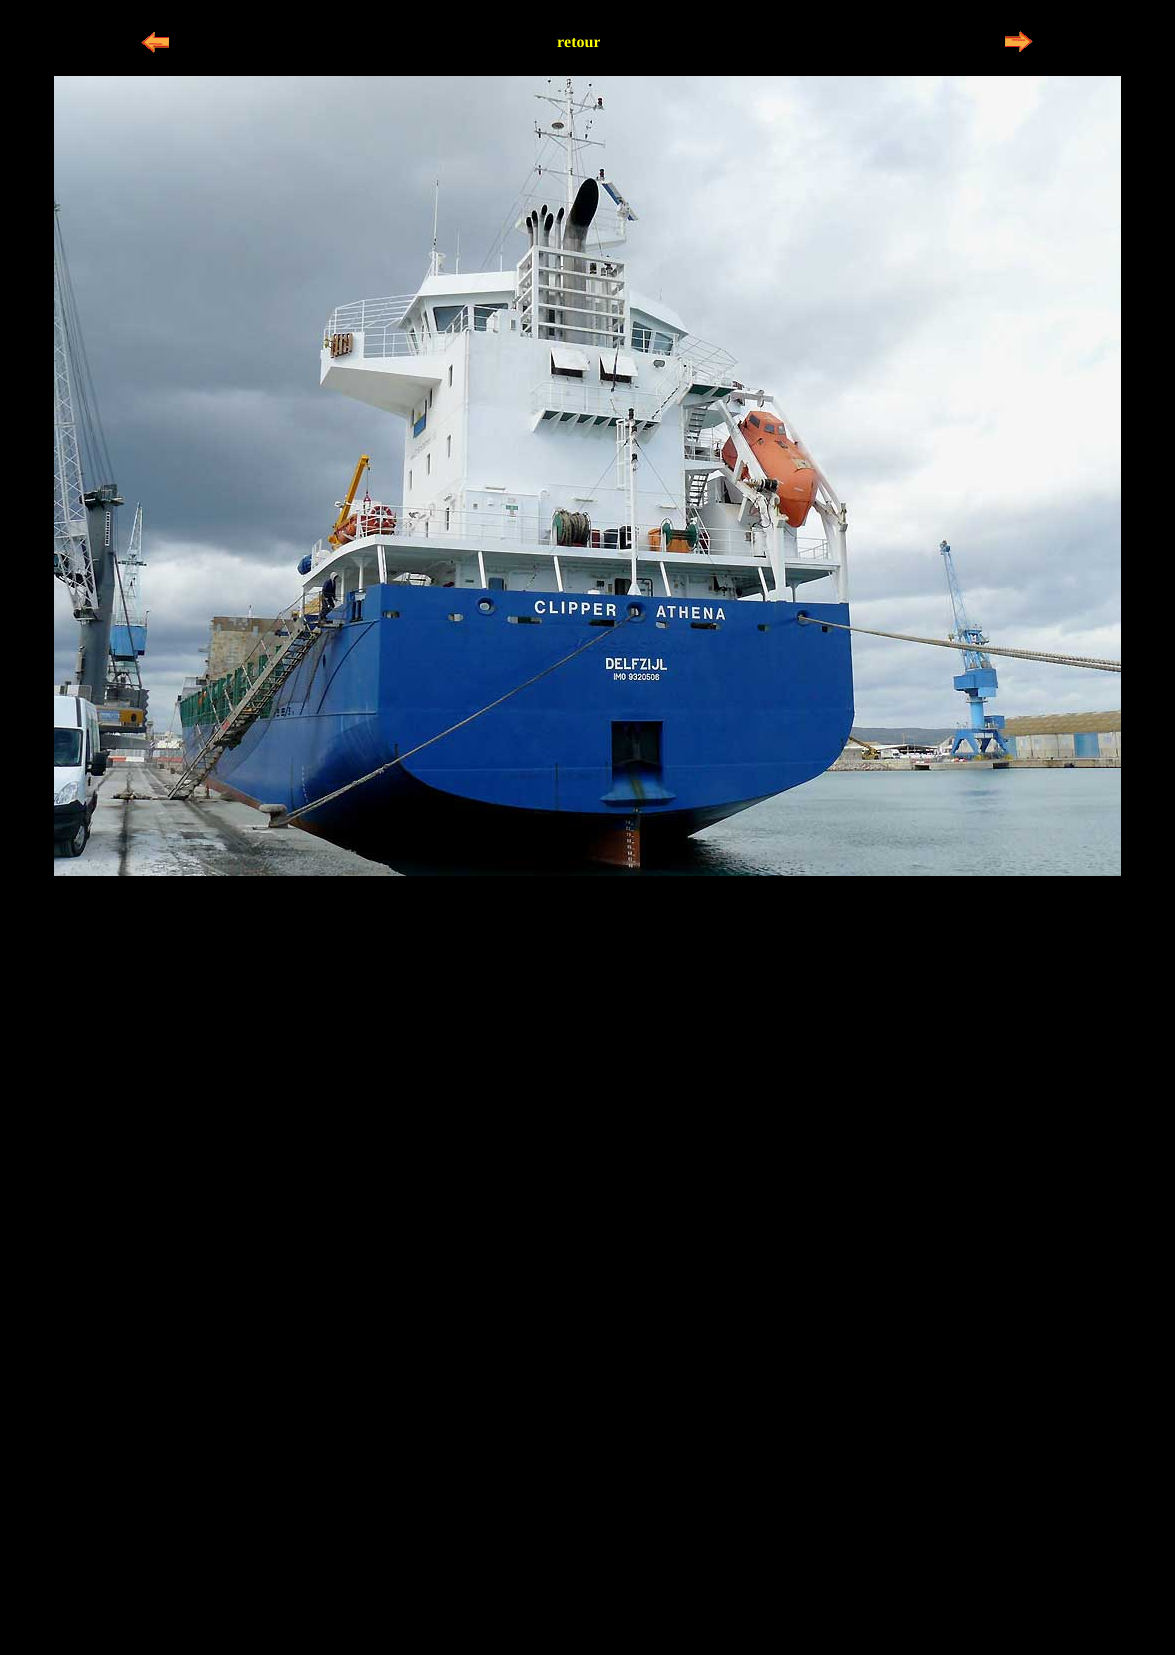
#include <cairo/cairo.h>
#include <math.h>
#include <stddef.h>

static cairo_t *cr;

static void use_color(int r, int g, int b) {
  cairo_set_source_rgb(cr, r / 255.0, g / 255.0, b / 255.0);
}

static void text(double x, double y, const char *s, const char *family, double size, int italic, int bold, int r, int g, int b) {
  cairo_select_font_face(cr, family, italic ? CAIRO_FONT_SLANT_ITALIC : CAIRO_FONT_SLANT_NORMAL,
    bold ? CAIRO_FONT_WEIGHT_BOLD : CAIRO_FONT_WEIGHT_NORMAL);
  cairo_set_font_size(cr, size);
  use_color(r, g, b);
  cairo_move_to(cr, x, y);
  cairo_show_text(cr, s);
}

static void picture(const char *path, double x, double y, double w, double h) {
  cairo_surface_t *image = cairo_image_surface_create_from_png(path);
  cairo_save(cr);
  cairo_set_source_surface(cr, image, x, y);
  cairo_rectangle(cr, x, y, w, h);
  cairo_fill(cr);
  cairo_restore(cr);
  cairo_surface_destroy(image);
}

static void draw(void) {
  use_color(0, 0, 0);
  cairo_paint(cr);
  picture("img_01.png", 141, 32, 28, 21);
  picture("img_02.png", 1005, 31, 28, 21);
  picture("img_03.png", 54, 76, 1067, 800);
  text(557, 47, "retour", "Liberation Serif", 16, 0, 1, 255, 255, 0);
}

int main(void) {
  cairo_surface_t *surface = cairo_image_surface_create(CAIRO_FORMAT_RGB24, 1175, 1655);
  cr = cairo_create(surface);
  cairo_font_options_t *options = cairo_font_options_create();
  cairo_font_options_set_hint_metrics(options, CAIRO_HINT_METRICS_OFF);
  cairo_font_options_set_hint_style(options, CAIRO_HINT_STYLE_NONE);
  cairo_set_font_options(cr, options);
  cairo_set_miter_limit(cr, 4);
  draw();
  cairo_surface_write_to_png(surface, "out.png");
  cairo_font_options_destroy(options);
  cairo_destroy(cr);
  cairo_surface_destroy(surface);
  return 0;
}
